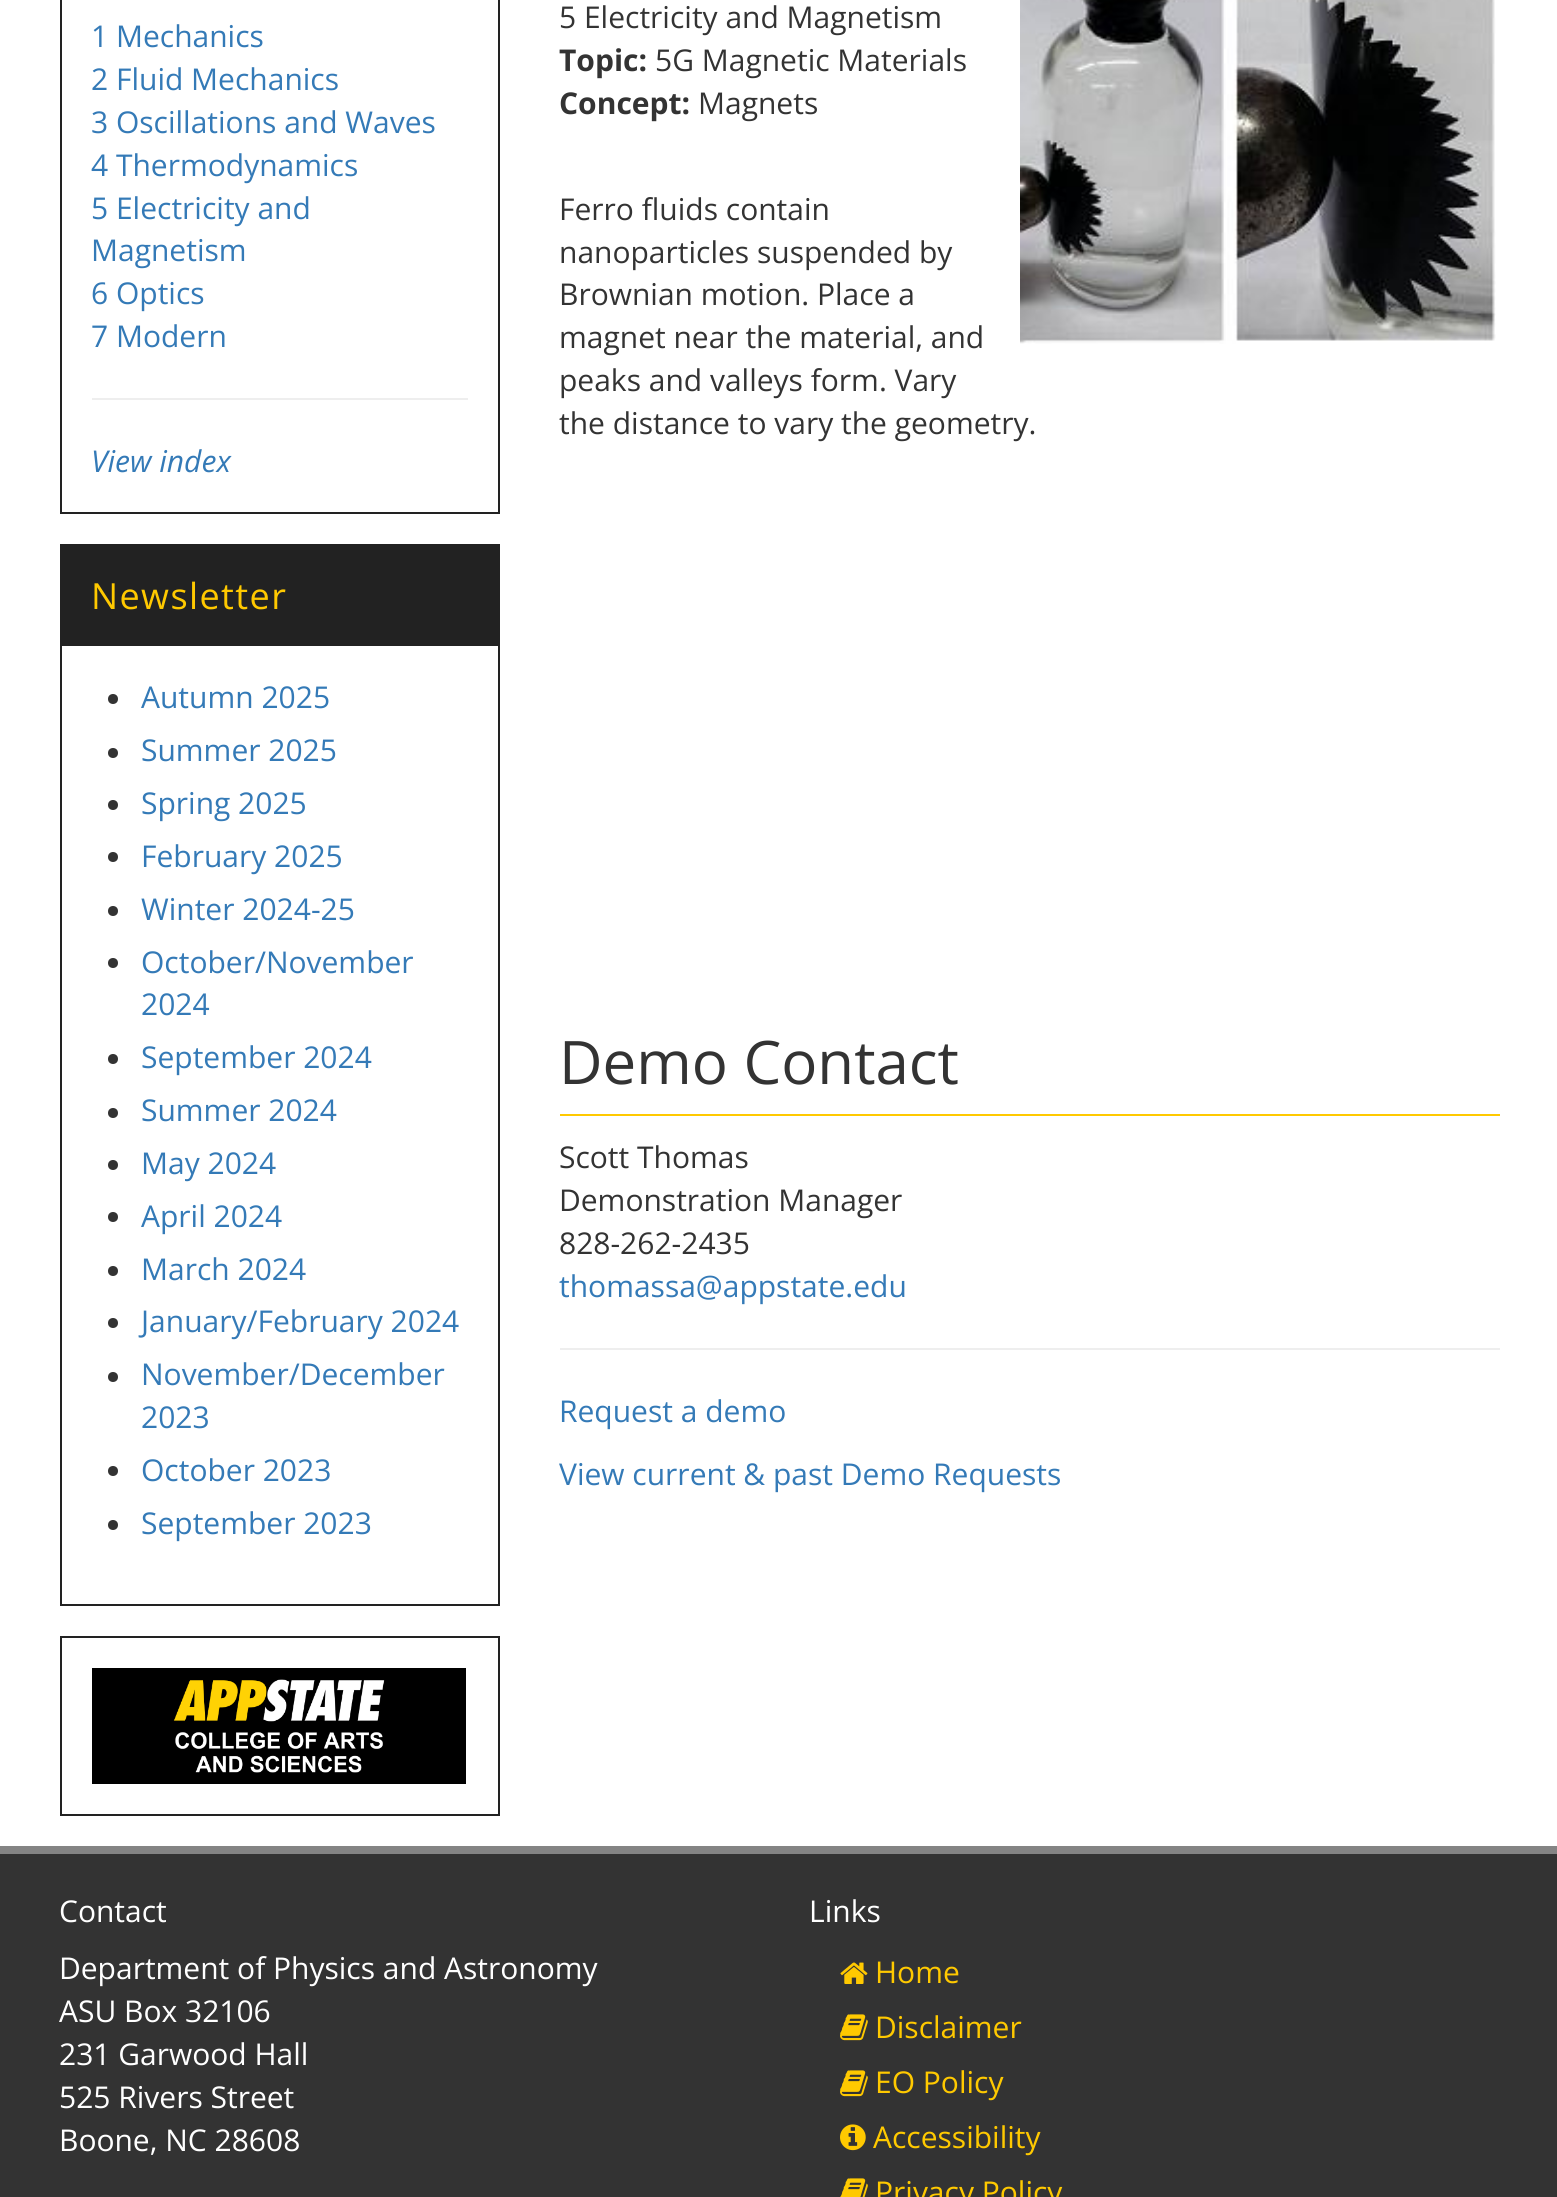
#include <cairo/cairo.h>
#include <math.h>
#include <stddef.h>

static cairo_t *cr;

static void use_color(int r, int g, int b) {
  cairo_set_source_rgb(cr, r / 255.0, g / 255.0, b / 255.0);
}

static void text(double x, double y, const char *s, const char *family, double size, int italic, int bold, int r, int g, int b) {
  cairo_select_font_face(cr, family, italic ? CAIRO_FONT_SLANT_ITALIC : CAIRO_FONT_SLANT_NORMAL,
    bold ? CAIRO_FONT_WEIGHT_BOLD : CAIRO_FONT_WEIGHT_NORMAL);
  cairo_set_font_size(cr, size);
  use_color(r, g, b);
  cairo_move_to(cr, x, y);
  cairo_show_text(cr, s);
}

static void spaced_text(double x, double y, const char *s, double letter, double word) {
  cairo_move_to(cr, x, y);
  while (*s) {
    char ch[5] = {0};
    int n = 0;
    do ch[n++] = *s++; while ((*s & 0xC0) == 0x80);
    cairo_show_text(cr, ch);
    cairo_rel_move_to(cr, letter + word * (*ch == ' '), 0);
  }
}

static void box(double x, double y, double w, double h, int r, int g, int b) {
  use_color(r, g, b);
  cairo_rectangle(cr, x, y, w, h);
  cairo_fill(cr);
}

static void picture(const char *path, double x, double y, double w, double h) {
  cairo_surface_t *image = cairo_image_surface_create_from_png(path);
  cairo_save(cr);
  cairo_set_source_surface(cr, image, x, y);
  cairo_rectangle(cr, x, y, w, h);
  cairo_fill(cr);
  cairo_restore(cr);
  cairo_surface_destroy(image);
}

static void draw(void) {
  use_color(51, 51, 51);
  cairo_paint(cr);
  box(0, 0, 1557, 1846, 255, 255, 255);
  cairo_rectangle(cr, 61, -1, 438, 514);
  use_color(34, 34, 34);
  cairo_stroke(cr);
  box(92, 398, 376, 2, 238, 238, 238);
  cairo_rectangle(cr, 61, 545, 438, 1060);
  use_color(34, 34, 34);
  cairo_stroke(cr);
  box(62, 546, 436, 100, 34, 34, 34);
  use_color(51, 51, 51);
  cairo_arc(cr, 113, 699, 5, 0, 2 * M_PI);
  cairo_fill(cr);
  cairo_arc(cr, 113, 753, 5, 0, 2 * M_PI);
  cairo_fill(cr);
  cairo_arc(cr, 113, 805, 5, 0, 2 * M_PI);
  cairo_fill(cr);
  cairo_arc(cr, 113, 857, 5, 0, 2 * M_PI);
  cairo_fill(cr);
  cairo_arc(cr, 113, 911, 5, 0, 2 * M_PI);
  cairo_fill(cr);
  cairo_arc(cr, 113, 963, 5, 0, 2 * M_PI);
  cairo_fill(cr);
  cairo_arc(cr, 113, 1059, 5, 0, 2 * M_PI);
  cairo_fill(cr);
  cairo_arc(cr, 113, 1113, 5, 0, 2 * M_PI);
  cairo_fill(cr);
  cairo_arc(cr, 113, 1165, 5, 0, 2 * M_PI);
  cairo_fill(cr);
  cairo_arc(cr, 113, 1217, 5, 0, 2 * M_PI);
  cairo_fill(cr);
  cairo_arc(cr, 113, 1271, 5, 0, 2 * M_PI);
  cairo_fill(cr);
  cairo_arc(cr, 113, 1323, 5, 0, 2 * M_PI);
  cairo_fill(cr);
  cairo_arc(cr, 113, 1377, 5, 0, 2 * M_PI);
  cairo_fill(cr);
  cairo_arc(cr, 113, 1471, 5, 0, 2 * M_PI);
  cairo_fill(cr);
  cairo_arc(cr, 113, 1525, 5, 0, 2 * M_PI);
  cairo_fill(cr);
  cairo_rectangle(cr, 61, 1637, 438, 178);
  use_color(34, 34, 34);
  cairo_stroke(cr);
  picture("img_01.png", 92, 1668, 374, 116);
  picture("img_02.png", 1020, 0, 476, 344);
  box(560, 1114, 940, 2, 255, 201, 0);
  box(560, 1348, 940, 2, 238, 238, 238);
  box(0, 1846, 1557, 8, 132, 132, 132);
  picture("img_03.png", 840, 1962, 28, 22);
  picture("img_04.png", 840, 2014, 28, 27);
  picture("img_04.png", 840, 2070, 28, 27);
  picture("img_05.png", 840, 2124, 26, 27);
  picture("img_06.png", 840, 2178, 28, 19);
  text(91, 47, "1 Mechanics", "Open Sans", 30, 0, 0, 52, 122, 183);
  text(91, 90, "2 Fluid Mechanics", "Open Sans", 30, 0, 0, 52, 122, 183);
  text(91, 133, "3 Oscillations and Waves", "Open Sans", 30, 0, 0, 52, 122, 183);
  text(91, 176, "4 Thermodynamics", "Open Sans", 30, 0, 0, 52, 122, 183);
  text(91, 219, "5 Electricity and", "Open Sans", 30, 0, 0, 52, 122, 183);
  text(91, 261, "Magnetism", "Open Sans", 30, 0, 0, 52, 122, 183);
  text(91, 304, "6 Optics", "Open Sans", 30, 0, 0, 52, 122, 183);
  text(91, 347, "7 Modern", "Open Sans", 30, 0, 0, 52, 122, 183);
  text(91, 472, "View index", "Open Sans", 30, 1, 0, 52, 122, 183);
  cairo_select_font_face(cr, "Open Sans", CAIRO_FONT_SLANT_NORMAL, CAIRO_FONT_WEIGHT_NORMAL);
  cairo_set_font_size(cr, 36);
  use_color(255, 201, 0);
  spaced_text(91, 609, "Newsletter", 1.4, 0);
  text(141, 708, "Autumn 2025", "Open Sans", 30, 0, 0, 52, 122, 183);
  text(141, 761, "Summer 2025", "Open Sans", 30, 0, 0, 52, 122, 183);
  text(141, 814, "Spring 2025", "Open Sans", 30, 0, 0, 52, 122, 183);
  text(141, 867, "February 2025", "Open Sans", 30, 0, 0, 52, 122, 183);
  text(141, 920, "Winter 2024-25", "Open Sans", 30, 0, 0, 52, 122, 183);
  text(141, 973, "October/November", "Open Sans", 30, 0, 0, 52, 122, 183);
  text(141, 1015, "2024", "Open Sans", 30, 0, 0, 52, 122, 183);
  text(141, 1068, "September 2024", "Open Sans", 30, 0, 0, 52, 122, 183);
  text(141, 1121, "Summer 2024", "Open Sans", 30, 0, 0, 52, 122, 183);
  text(141, 1174, "May 2024", "Open Sans", 30, 0, 0, 52, 122, 183);
  text(141, 1227, "April 2024", "Open Sans", 30, 0, 0, 52, 122, 183);
  text(141, 1280, "March 2024", "Open Sans", 30, 0, 0, 52, 122, 183);
  text(141, 1332, "January/February 2024", "Open Sans", 30, 0, 0, 52, 122, 183);
  text(141, 1385, "November/December", "Open Sans", 30, 0, 0, 52, 122, 183);
  text(141, 1428, "2023", "Open Sans", 30, 0, 0, 52, 122, 183);
  text(141, 1481, "October 2023", "Open Sans", 30, 0, 0, 52, 122, 183);
  text(141, 1534, "September 2023", "Open Sans", 30, 0, 0, 52, 122, 183);
  text(559, 28, "5 Electricity and Magnetism", "Open Sans", 30, 0, 0, 51, 51, 51);
  text(559, 71, "Topic:", "Open Sans", 30, 0, 1, 51, 51, 51);
  text(655, 71, "5G Magnetic Materials", "Open Sans", 30, 0, 0, 51, 51, 51);
  text(559, 114, "Concept:", "Open Sans", 30, 0, 1, 51, 51, 51);
  text(698, 114, "Magnets", "Open Sans", 30, 0, 0, 51, 51, 51);
  text(559, 220, "Ferro fluids contain", "Open Sans", 30, 0, 0, 51, 51, 51);
  text(559, 263, "nanoparticles suspended by", "Open Sans", 30, 0, 0, 51, 51, 51);
  text(559, 305, "Brownian motion. Place a", "Open Sans", 30, 0, 0, 51, 51, 51);
  text(559, 348, "magnet near the material, and", "Open Sans", 30, 0, 0, 51, 51, 51);
  text(559, 391, "peaks and valleys form. Vary", "Open Sans", 30, 0, 0, 51, 51, 51);
  text(559, 434, "the distance to vary the geometry.", "Open Sans", 30, 0, 0, 51, 51, 51);
  text(559, 1084, "Demo Contact", "Open Sans", 60, 0, 0, 51, 51, 51);
  text(559, 1168, "Scott Thomas", "Open Sans", 30, 0, 0, 51, 51, 51);
  text(559, 1211, "Demonstration Manager", "Open Sans", 30, 0, 0, 51, 51, 51);
  text(559, 1254, "828-262-2435", "Open Sans", 30, 0, 0, 51, 51, 51);
  text(559, 1297, "thomassa@appstate.edu", "Open Sans", 30, 0, 0, 52, 122, 183);
  text(559, 1422, "Request a demo", "Open Sans", 30, 0, 0, 52, 122, 183);
  text(559, 1485, "View current & past Demo Requests", "Open Sans", 30, 0, 0, 52, 122, 183);
  text(59, 1922, "Contact", "Open Sans", 30, 0, 0, 255, 255, 255);
  text(59, 1979, "Department of Physics and Astronomy", "Open Sans", 30, 0, 0, 255, 255, 255);
  text(59, 2022, "ASU Box 32106", "Open Sans", 30, 0, 0, 255, 255, 255);
  text(59, 2065, "231 Garwood Hall", "Open Sans", 30, 0, 0, 255, 255, 255);
  text(59, 2108, "525 Rivers Street", "Open Sans", 30, 0, 0, 255, 255, 255);
  text(59, 2151, "Boone, NC 28608", "Open Sans", 30, 0, 0, 255, 255, 255);
  text(809, 1922, "Links", "Open Sans", 30, 0, 0, 255, 255, 255);
  text(875, 1983, "Home", "Open Sans", 30, 0, 0, 255, 201, 0);
  text(875, 2038, "Disclaimer", "Open Sans", 30, 0, 0, 255, 201, 0);
  text(875, 2093, "EO Policy", "Open Sans", 30, 0, 0, 255, 201, 0);
  text(873, 2148, "Accessibility", "Open Sans", 30, 0, 0, 255, 201, 0);
  text(875, 2203, "Privacy Policy", "Open Sans", 30, 0, 0, 255, 201, 0);
}

int main(void) {
  cairo_surface_t *surface = cairo_image_surface_create(CAIRO_FORMAT_RGB24, 1557, 2197);
  cr = cairo_create(surface);
  cairo_font_options_t *options = cairo_font_options_create();
  cairo_font_options_set_hint_metrics(options, CAIRO_HINT_METRICS_OFF);
  cairo_font_options_set_hint_style(options, CAIRO_HINT_STYLE_NONE);
  cairo_set_font_options(cr, options);
  cairo_set_miter_limit(cr, 4);
  draw();
  cairo_surface_write_to_png(surface, "out.png");
  cairo_font_options_destroy(options);
  cairo_destroy(cr);
  cairo_surface_destroy(surface);
  return 0;
}
